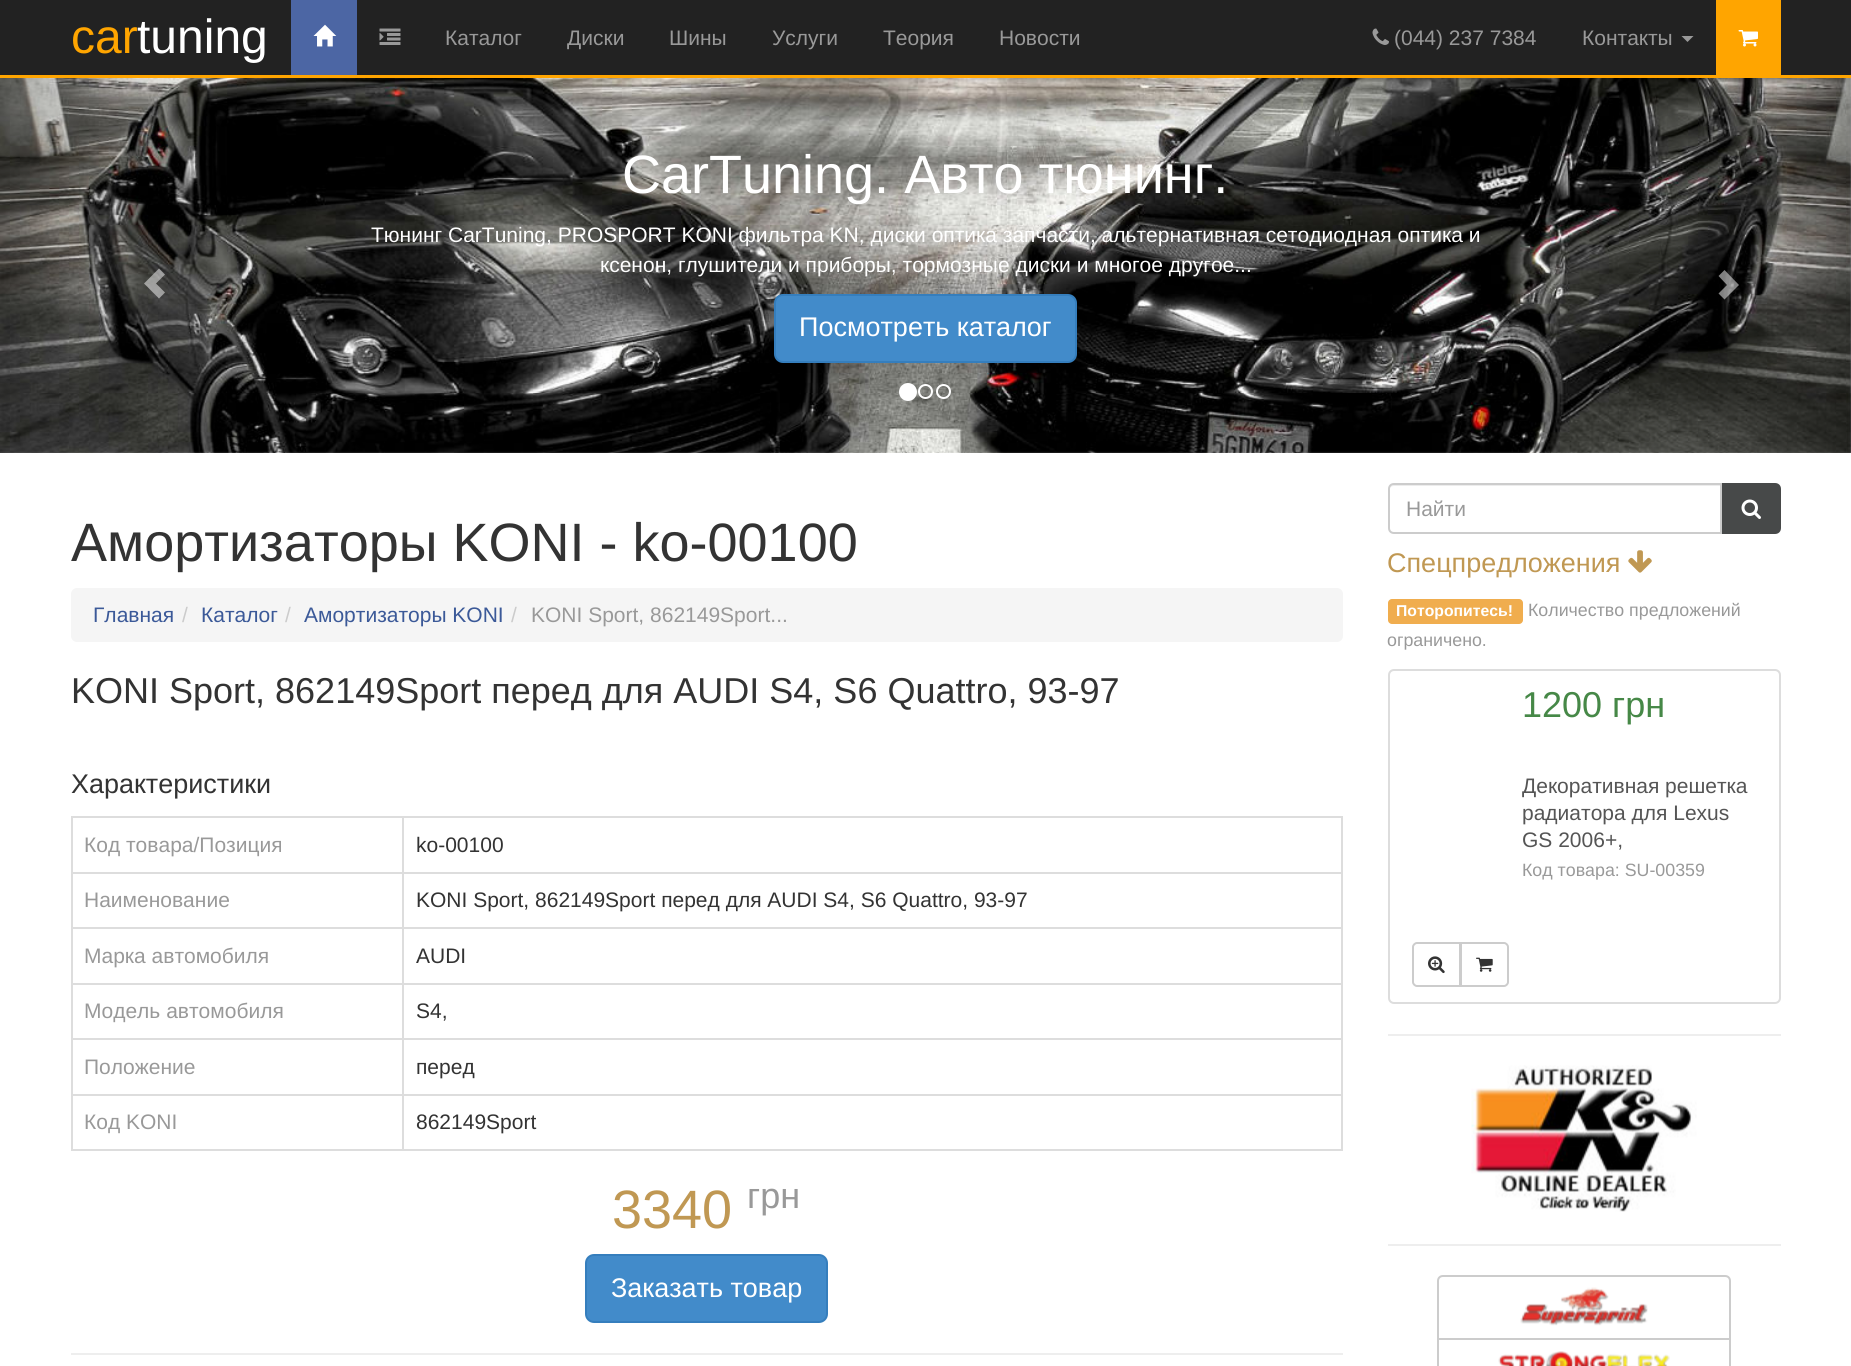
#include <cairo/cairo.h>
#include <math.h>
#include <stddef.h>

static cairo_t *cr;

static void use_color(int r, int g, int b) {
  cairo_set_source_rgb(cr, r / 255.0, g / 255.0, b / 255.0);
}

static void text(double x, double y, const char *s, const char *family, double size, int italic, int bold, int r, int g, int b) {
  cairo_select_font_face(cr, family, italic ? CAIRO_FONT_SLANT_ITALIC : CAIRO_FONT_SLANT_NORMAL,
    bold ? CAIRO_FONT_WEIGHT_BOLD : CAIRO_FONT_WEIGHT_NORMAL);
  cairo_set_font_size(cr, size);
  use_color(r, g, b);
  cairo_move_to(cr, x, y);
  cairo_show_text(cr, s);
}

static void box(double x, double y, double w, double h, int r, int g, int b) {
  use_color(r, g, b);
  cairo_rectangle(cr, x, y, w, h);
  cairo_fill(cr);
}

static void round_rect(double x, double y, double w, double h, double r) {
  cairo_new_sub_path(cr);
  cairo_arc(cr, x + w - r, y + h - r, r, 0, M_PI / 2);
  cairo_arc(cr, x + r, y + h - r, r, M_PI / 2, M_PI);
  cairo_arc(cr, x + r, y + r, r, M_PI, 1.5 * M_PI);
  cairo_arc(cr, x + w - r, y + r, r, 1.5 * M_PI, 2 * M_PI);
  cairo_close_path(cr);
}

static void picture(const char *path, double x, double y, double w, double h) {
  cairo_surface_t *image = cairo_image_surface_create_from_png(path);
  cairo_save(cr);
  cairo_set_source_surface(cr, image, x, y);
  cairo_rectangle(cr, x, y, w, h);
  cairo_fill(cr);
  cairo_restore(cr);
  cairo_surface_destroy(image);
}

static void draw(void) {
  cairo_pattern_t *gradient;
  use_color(255, 255, 255);
  cairo_paint(cr);
  box(0, 0, 1851, 75, 34, 34, 34);
  box(0, 75, 1851, 3, 255, 165, 0);
  box(291, 0, 66, 75, 76, 102, 164);
  picture("img_01.png", 313, 24, 24, 23);
  picture("img_02.png", 379, 28, 22, 17);
  picture("img_03.png", 1372, 28, 17, 17);
  use_color(153, 153, 153);
  cairo_new_path(cr);
  cairo_move_to(cr, 1681.5, 36);
  cairo_line_to(cr, 1693.5, 36);
  cairo_line_to(cr, 1687.5, 42);
  cairo_close_path(cr);
  cairo_fill(cr);
  box(1716, 0, 65, 75, 255, 165, 0);
  picture("img_04.png", 1738, 30, 20, 17);
  picture("img_05.png", 0, 78, 1851, 375);
  gradient = cairo_pattern_create_linear(0, 266, 278, 266);
  cairo_pattern_add_color_stop_rgba(gradient, 0, 0, 0, 0, 0.25);
  cairo_pattern_add_color_stop_rgba(gradient, 1, 0, 0, 0, 0);
  cairo_set_source(cr, gradient);
  cairo_pattern_destroy(gradient);
  cairo_rectangle(cr, 0, 78, 254, 375);
  cairo_fill(cr);
  cairo_set_source_rgba(cr, 1, 1, 1, 0.5);
  cairo_new_path(cr);
  cairo_move_to(cr, 159, 298.5);
  cairo_line_to(cr, 165, 292.5);
  cairo_line_to(cr, 156, 283.5);
  cairo_line_to(cr, 165, 274.5);
  cairo_line_to(cr, 159, 268.5);
  cairo_line_to(cr, 144, 283.5);
  cairo_close_path(cr);
  cairo_fill(cr);
  use_color(66, 139, 202);
  round_rect(775, 295, 301, 67, 8);
  cairo_fill_preserve(cr);
  use_color(53, 126, 189);
  cairo_stroke(cr);
  gradient = cairo_pattern_create_linear(1574, 266, 1851, 266);
  cairo_pattern_add_color_stop_rgba(gradient, 0, 0, 0, 0, 0);
  cairo_pattern_add_color_stop_rgba(gradient, 1, 0, 0, 0, 0.25);
  cairo_set_source(cr, gradient);
  cairo_pattern_destroy(gradient);
  cairo_rectangle(cr, 1598, 78, 253, 375);
  cairo_fill(cr);
  cairo_set_source_rgba(cr, 1, 1, 1, 0.5);
  cairo_new_path(cr);
  cairo_move_to(cr, 1724.5, 299.5);
  cairo_line_to(cr, 1718.5, 293.5);
  cairo_line_to(cr, 1727, 285);
  cairo_line_to(cr, 1718.5, 276);
  cairo_line_to(cr, 1724.5, 270);
  cairo_line_to(cr, 1739, 285);
  cairo_close_path(cr);
  cairo_fill(cr);
  use_color(255, 255, 255);
  cairo_arc(cr, 908, 392, 8, 0, 2 * M_PI);
  cairo_fill_preserve(cr);
  cairo_stroke(cr);
  cairo_arc(cr, 925.5, 391.5, 6.5, 0, 2 * M_PI);
  cairo_stroke(cr);
  cairo_arc(cr, 943.5, 391.5, 6.5, 0, 2 * M_PI);
  cairo_stroke(cr);
  use_color(245, 245, 245);
  round_rect(71, 588, 1272, 54, 6);
  cairo_fill(cr);
  box(71, 816, 1272, 2, 221, 221, 221);
  box(1341, 816, 2, 335, 221, 221, 221);
  box(71, 1149, 1272, 2, 221, 221, 221);
  box(71, 816, 2, 335, 221, 221, 221);
  box(402, 872, 941, 2, 221, 221, 221);
  box(402, 927, 941, 2, 221, 221, 221);
  box(402, 983, 941, 2, 221, 221, 221);
  box(402, 1038, 941, 2, 221, 221, 221);
  box(402, 1094, 941, 2, 221, 221, 221);
  box(402, 1094, 2, 57, 221, 221, 221);
  box(71, 1094, 333, 2, 221, 221, 221);
  box(402, 1038, 2, 57, 221, 221, 221);
  box(71, 1038, 333, 2, 221, 221, 221);
  box(402, 983, 2, 57, 221, 221, 221);
  box(71, 983, 333, 2, 221, 221, 221);
  box(402, 927, 2, 57, 221, 221, 221);
  box(71, 927, 333, 2, 221, 221, 221);
  box(402, 872, 2, 57, 221, 221, 221);
  box(71, 872, 333, 2, 221, 221, 221);
  box(402, 816, 2, 57, 221, 221, 221);
  use_color(66, 139, 202);
  round_rect(586, 1255, 241, 67, 8);
  cairo_fill_preserve(cr);
  use_color(53, 126, 189);
  cairo_stroke(cr);
  box(71, 1353, 1272, 2, 238, 238, 238);
  use_color(236, 236, 236);
  cairo_new_path(cr);
  cairo_move_to(cr, 1394, 486);
  cairo_line_to(cr, 1720, 486);
  cairo_line_to(cr, 1720, 533);
  cairo_line_to(cr, 1721, 533);
  cairo_line_to(cr, 1721, 485);
  cairo_line_to(cr, 1394, 485);
  cairo_curve_to(cr, 1391, 485, 1389, 487, 1389, 490);
  cairo_curve_to(cr, 1389, 488, 1391, 486, 1394, 486);
  cairo_close_path(cr);
  cairo_fill(cr);
  cairo_new_path(cr);
  cairo_move_to(cr, 1394, 484);
  cairo_line_to(cr, 1721, 484);
  cairo_line_to(cr, 1721, 533);
  cairo_line_to(cr, 1394, 533);
  cairo_curve_to(cr, 1391, 533, 1389, 531, 1389, 528);
  cairo_line_to(cr, 1389, 489);
  cairo_curve_to(cr, 1389, 486, 1391, 484, 1394, 484);
  cairo_close_path(cr);
  use_color(204, 204, 204);
  cairo_stroke(cr);
  use_color(71, 73, 73);
  cairo_new_path(cr);
  cairo_move_to(cr, 1723, 484);
  cairo_line_to(cr, 1775, 484);
  cairo_curve_to(cr, 1778, 484, 1780, 486, 1780, 489);
  cairo_line_to(cr, 1780, 528);
  cairo_curve_to(cr, 1780, 531, 1778, 533, 1775, 533);
  cairo_line_to(cr, 1723, 533);
  cairo_close_path(cr);
  cairo_fill_preserve(cr);
  cairo_stroke(cr);
  picture("img_06.png", 1741, 499, 20, 20);
  picture("img_07.png", 1628, 550, 24, 23);
  use_color(240, 173, 78);
  round_rect(1388, 599, 135, 25, 4);
  cairo_fill(cr);
  round_rect(1389, 670, 391, 333, 5);
  use_color(221, 221, 221);
  cairo_stroke(cr);
  cairo_new_path(cr);
  cairo_move_to(cr, 1417, 943);
  cairo_line_to(cr, 1460, 943);
  cairo_line_to(cr, 1460, 986);
  cairo_line_to(cr, 1417, 986);
  cairo_curve_to(cr, 1415, 986, 1413, 984, 1413, 982);
  cairo_line_to(cr, 1413, 947);
  cairo_curve_to(cr, 1413, 945, 1415, 943, 1417, 943);
  cairo_close_path(cr);
  use_color(204, 204, 204);
  cairo_stroke(cr);
  picture("img_08.png", 1428, 956, 17, 18);
  use_color(255, 255, 255);
  cairo_new_path(cr);
  cairo_move_to(cr, 1461, 943);
  cairo_line_to(cr, 1504, 943);
  cairo_curve_to(cr, 1506, 943, 1508, 945, 1508, 947);
  cairo_line_to(cr, 1508, 982);
  cairo_curve_to(cr, 1508, 984, 1506, 986, 1504, 986);
  cairo_line_to(cr, 1461, 986);
  cairo_close_path(cr);
  cairo_fill_preserve(cr);
  use_color(204, 204, 204);
  cairo_stroke(cr);
  picture("img_09.png", 1476, 957, 17, 15);
  box(1388, 1034, 393, 2, 238, 238, 238);
  picture("img_10.png", 1471, 1065, 226, 147);
  box(1388, 1244, 393, 2, 238, 238, 238);
  cairo_new_path(cr);
  cairo_move_to(cr, 1443, 1276);
  cairo_line_to(cr, 1725, 1276);
  cairo_curve_to(cr, 1728, 1276, 1730, 1278, 1730, 1281);
  cairo_line_to(cr, 1730, 1339);
  cairo_line_to(cr, 1438, 1339);
  cairo_line_to(cr, 1438, 1281);
  cairo_curve_to(cr, 1438, 1278, 1440, 1276, 1443, 1276);
  cairo_close_path(cr);
  use_color(204, 204, 204);
  cairo_stroke(cr);
  picture("img_11.png", 1520, 1287, 128, 39);
  cairo_rectangle(cr, 1438, 1339, 292, 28);
  cairo_stroke(cr);
  picture("img_12.png", 1498, 1351, 172, 15);
  text(71, 53, "car", "Liberation Sans", 48, 0, 0, 255, 165, 0);
  text(137, 53, "tuning", "Liberation Sans", 48, 0, 0, 255, 255, 255);
  text(445, 45, "Каталог", "Liberation Sans", 21, 0, 0, 153, 153, 153);
  text(567, 45, "Диски", "Liberation Sans", 21, 0, 0, 153, 153, 153);
  text(669, 45, "Шины", "Liberation Sans", 21, 0, 0, 153, 153, 153);
  text(772, 45, "Услуги", "Liberation Sans", 21, 0, 0, 153, 153, 153);
  text(883, 45, "Теория", "Liberation Sans", 21, 0, 0, 153, 153, 153);
  text(999, 45, "Новости", "Liberation Sans", 21, 0, 0, 153, 153, 153);
  text(1394, 45, "(044) 237 7384", "Liberation Sans", 21, 0, 0, 153, 153, 153);
  text(1582, 45, "Контакты", "Liberation Sans", 21, 0, 0, 153, 153, 153);
  text(622, 193, "CarTuning. Авто тюнинг.", "Liberation Sans", 54, 0, 0, 255, 255, 255);
  text(371, 242, "Тюнинг CarTuning, PROSPORT KONI фильтра KN, диски оптика запчасти, альтернативная сетодиодная оптика и", "Liberation Sans", 21, 0, 0, 255, 255, 255);
  text(600, 272, "ксенон, глушители и приборы, тормозные диски и многое другое...", "Liberation Sans", 21, 0, 0, 255, 255, 255);
  text(799, 336, "Посмотреть каталог", "Liberation Sans", 27, 0, 0, 255, 255, 255);
  text(71, 561, "Амортизаторы KONI - ko-00100", "Liberation Sans", 54, 0, 0, 51, 51, 51);
  text(93, 622, "Главная", "Liberation Sans", 21, 0, 0, 59, 89, 152);
  text(182, 622, "/", "Liberation Sans", 21, 0, 0, 204, 204, 204);
  text(201, 622, "Каталог", "Liberation Sans", 21, 0, 0, 59, 89, 152);
  text(285, 622, "/", "Liberation Sans", 21, 0, 0, 204, 204, 204);
  text(304, 622, "Амортизаторы KONI", "Liberation Sans", 21, 0, 0, 59, 89, 152);
  text(511, 622, "/", "Liberation Sans", 21, 0, 0, 204, 204, 204);
  text(531, 622, "KONI Sport, 862149Sport...", "Liberation Sans", 21, 0, 0, 153, 153, 153);
  text(71, 703, "KONI Sport, 862149Sport перед для AUDI S4, S6 Quattro, 93-97", "Liberation Sans", 36, 0, 0, 51, 51, 51);
  text(71, 793, "Характеристики", "Liberation Sans", 27, 0, 0, 51, 51, 51);
  text(84, 852, "Код товара/Позиция", "Liberation Sans", 21, 0, 0, 153, 153, 153);
  text(416, 852, "ko-00100", "Liberation Sans", 21, 0, 0, 51, 51, 51);
  text(84, 907, "Наименование", "Liberation Sans", 21, 0, 0, 153, 153, 153);
  text(416, 907, "KONI Sport, 862149Sport перед для AUDI S4, S6 Quattro, 93-97", "Liberation Sans", 21, 0, 0, 51, 51, 51);
  text(84, 963, "Марка автомобиля", "Liberation Sans", 21, 0, 0, 153, 153, 153);
  text(416, 963, "AUDI", "Liberation Sans", 21, 0, 0, 51, 51, 51);
  text(84, 1018, "Модель автомобиля", "Liberation Sans", 21, 0, 0, 153, 153, 153);
  text(416, 1018, "S4,", "Liberation Sans", 21, 0, 0, 51, 51, 51);
  text(84, 1074, "Положение", "Liberation Sans", 21, 0, 0, 153, 153, 153);
  text(416, 1074, "перед", "Liberation Sans", 21, 0, 0, 51, 51, 51);
  text(84, 1129, "Код KONI", "Liberation Sans", 21, 0, 0, 153, 153, 153);
  text(416, 1129, "862149Sport", "Liberation Sans", 21, 0, 0, 51, 51, 51);
  text(612, 1228, "3340", "Liberation Sans", 54, 0, 0, 192, 152, 83);
  text(747, 1208, "грн", "Liberation Sans", 36, 0, 0, 153, 153, 153);
  text(611, 1297, "Заказать товар", "Liberation Sans", 27, 0, 0, 255, 255, 255);
  text(1406, 516, "Найти", "Liberation Sans", 21, 0, 0, 153, 153, 153);
  text(1387, 572, "Спецпредложения", "Liberation Sans", 27, 0, 0, 192, 152, 83);
  text(1396, 616, "Поторопитесь!", "Liberation Sans", 15.75, 0, 1, 255, 255, 255);
  text(1528, 616, "Количество предложений", "Liberation Sans", 17.8, 0, 0, 153, 153, 153);
  text(1387, 646, "ограничено.", "Liberation Sans", 17.8, 0, 0, 153, 153, 153);
  text(1522, 717, "1200 грн", "Liberation Sans", 36, 0, 0, 70, 136, 71);
  text(1522, 793, "Декоративная решетка", "Liberation Sans", 21, 0, 0, 85, 85, 85);
  text(1522, 820, "радиатора для Lexus", "Liberation Sans", 21, 0, 0, 85, 85, 85);
  text(1522, 847, "GS 2006+,", "Liberation Sans", 21, 0, 0, 85, 85, 85);
  text(1522, 876, "Код товара: SU-00359", "Liberation Sans", 17.8, 0, 0, 153, 153, 153);
}

int main(void) {
  cairo_surface_t *surface = cairo_image_surface_create(CAIRO_FORMAT_RGB24, 1851, 1366);
  cr = cairo_create(surface);
  cairo_font_options_t *options = cairo_font_options_create();
  cairo_font_options_set_hint_metrics(options, CAIRO_HINT_METRICS_OFF);
  cairo_font_options_set_hint_style(options, CAIRO_HINT_STYLE_NONE);
  cairo_set_font_options(cr, options);
  cairo_set_miter_limit(cr, 4);
  draw();
  cairo_surface_write_to_png(surface, "out.png");
  cairo_font_options_destroy(options);
  cairo_destroy(cr);
  cairo_surface_destroy(surface);
  return 0;
}
